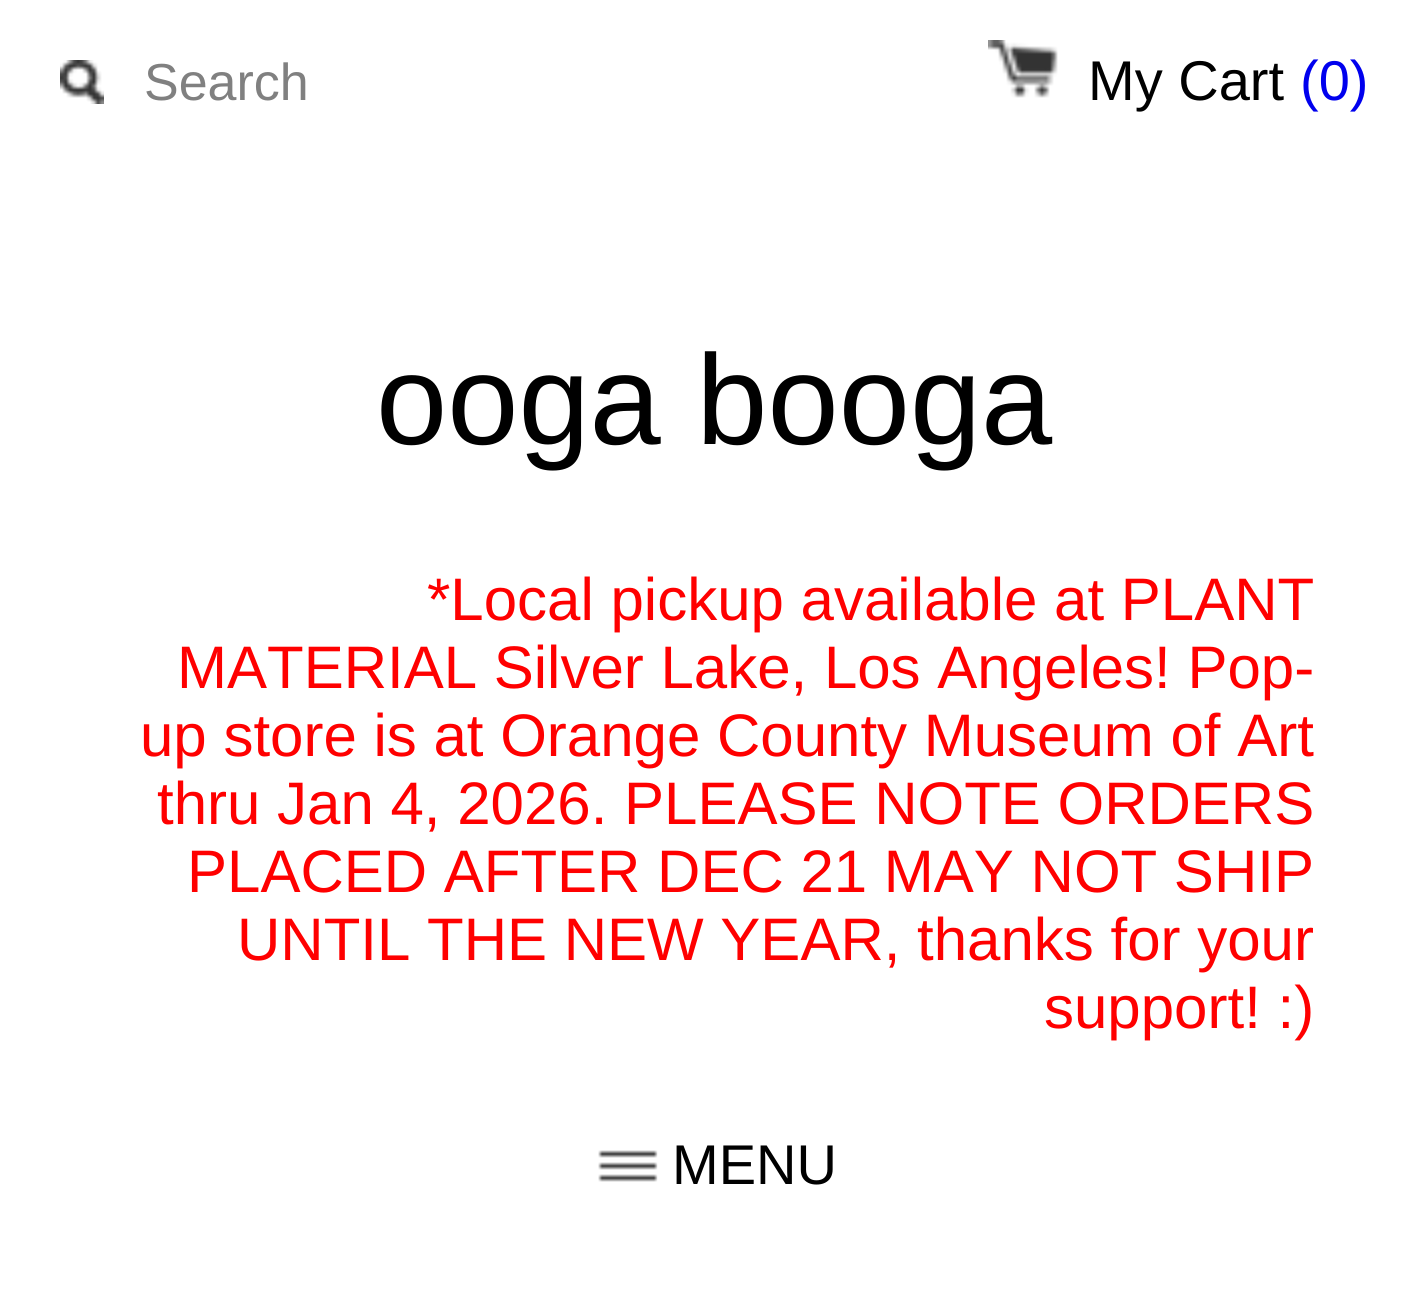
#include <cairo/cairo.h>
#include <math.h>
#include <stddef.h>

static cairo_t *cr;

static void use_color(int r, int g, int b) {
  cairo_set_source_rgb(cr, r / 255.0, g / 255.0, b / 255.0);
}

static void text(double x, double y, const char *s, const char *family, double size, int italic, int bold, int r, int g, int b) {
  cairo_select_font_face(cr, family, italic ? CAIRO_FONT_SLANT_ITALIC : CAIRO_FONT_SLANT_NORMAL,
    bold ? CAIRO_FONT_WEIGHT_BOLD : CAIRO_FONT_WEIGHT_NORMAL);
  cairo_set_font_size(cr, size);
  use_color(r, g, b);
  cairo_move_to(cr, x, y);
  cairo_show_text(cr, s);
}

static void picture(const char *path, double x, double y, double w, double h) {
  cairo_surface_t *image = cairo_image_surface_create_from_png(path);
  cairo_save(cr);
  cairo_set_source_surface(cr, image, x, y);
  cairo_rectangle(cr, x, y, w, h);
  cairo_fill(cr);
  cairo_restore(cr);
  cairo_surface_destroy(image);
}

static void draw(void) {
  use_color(255, 255, 255);
  cairo_paint(cr);
  picture("img_01.png", 60, 60, 44, 44);
  picture("img_02.png", 988, 40, 70, 58);
  picture("img_03.png", 598, 1150, 60, 32);
  text(144, 100, "Search", "Liberation Sans", 52, 0, 0, 128, 128, 128);
  text(1088, 100, "My Cart", "Liberation Sans", 56, 0, 0, 0, 0, 0);
  text(1300, 100, "(0)", "Liberation Sans", 56, 0, 0, 0, 0, 238);
  text(376, 444, "ooga booga", "Liberation Sans", 128, 0, 0, 0, 0, 0);
  text(427, 620, "*Local pickup available at PLANT", "Liberation Sans", 60, 0, 0, 255, 0, 0);
  text(177, 688, "MATERIAL Silver Lake, Los Angeles! Pop-", "Liberation Sans", 60, 0, 0, 255, 0, 0);
  text(140, 756, "up store is at Orange County Museum of Art", "Liberation Sans", 60, 0, 0, 255, 0, 0);
  text(157, 824, "thru Jan 4, 2026. PLEASE NOTE ORDERS", "Liberation Sans", 60, 0, 0, 255, 0, 0);
  text(187, 892, "PLACED AFTER DEC 21 MAY NOT SHIP", "Liberation Sans", 60, 0, 0, 255, 0, 0);
  text(237, 960, "UNTIL THE NEW YEAR, thanks for your", "Liberation Sans", 60, 0, 0, 255, 0, 0);
  text(1044, 1028, "support! :)", "Liberation Sans", 60, 0, 0, 255, 0, 0);
  text(672, 1184, "MENU", "Liberation Sans", 56, 0, 0, 0, 0, 0);
}

int main(void) {
  cairo_surface_t *surface = cairo_image_surface_create(CAIRO_FORMAT_RGB24, 1425, 1289);
  cr = cairo_create(surface);
  cairo_font_options_t *options = cairo_font_options_create();
  cairo_font_options_set_hint_metrics(options, CAIRO_HINT_METRICS_OFF);
  cairo_font_options_set_hint_style(options, CAIRO_HINT_STYLE_NONE);
  cairo_set_font_options(cr, options);
  cairo_set_miter_limit(cr, 4);
  draw();
  cairo_surface_write_to_png(surface, "out.png");
  cairo_font_options_destroy(options);
  cairo_destroy(cr);
  cairo_surface_destroy(surface);
  return 0;
}
